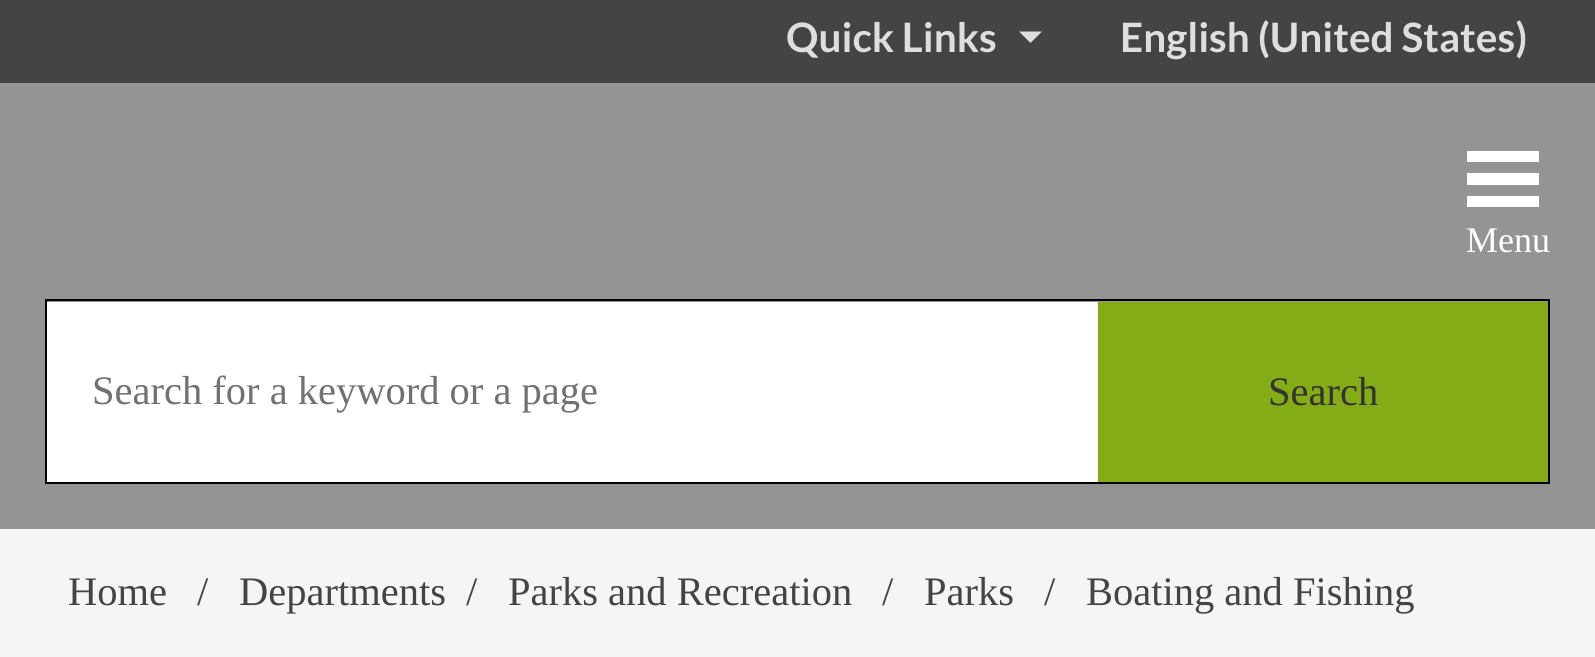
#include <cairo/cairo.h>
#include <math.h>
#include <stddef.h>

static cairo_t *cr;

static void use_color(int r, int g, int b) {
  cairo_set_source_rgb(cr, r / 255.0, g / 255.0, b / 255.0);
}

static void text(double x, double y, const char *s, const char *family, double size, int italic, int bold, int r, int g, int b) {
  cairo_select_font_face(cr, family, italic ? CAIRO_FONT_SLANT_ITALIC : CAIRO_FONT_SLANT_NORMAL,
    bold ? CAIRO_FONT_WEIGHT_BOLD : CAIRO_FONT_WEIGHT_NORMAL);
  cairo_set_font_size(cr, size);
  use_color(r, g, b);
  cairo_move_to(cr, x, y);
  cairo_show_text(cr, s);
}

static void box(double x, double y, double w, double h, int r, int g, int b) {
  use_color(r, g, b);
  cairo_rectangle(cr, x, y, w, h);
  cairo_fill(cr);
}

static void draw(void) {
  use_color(68, 68, 68);
  cairo_paint(cr);
  use_color(222, 222, 222);
  cairo_new_path(cr);
  cairo_move_to(cr, 1019, 31.5);
  cairo_line_to(cr, 1042, 31.5);
  cairo_line_to(cr, 1030.5, 43);
  cairo_close_path(cr);
  cairo_fill(cr);
  box(0, 83, 1595, 446, 148, 148, 148);
  box(1467, 173, 72, 12, 255, 255, 255);
  box(1467, 151, 72, 11, 255, 255, 255);
  box(1467, 196, 72, 11, 255, 255, 255);
  cairo_rectangle(cr, 46, 300, 1503, 183);
  use_color(0, 0, 0);
  cairo_stroke(cr);
  box(47, 302, 1051, 180, 255, 255, 255);
  box(1098, 302, 450, 180, 131, 172, 22);
  box(0, 529, 1595, 128, 245, 245, 245);
  text(786, 52, "Quick Links", "Lato", 40.5, 0, 1, 222, 222, 222);
  text(1120, 52, "English (United States)", "Lato", 40.5, 0, 1, 222, 222, 222);
  text(1466, 252, "Menu", "Tinos", 36, 0, 0, 255, 255, 255);
  text(92, 404, "Search for a keyword or a page", "Tinos", 40.5, 0, 0, 113, 113, 113);
  text(1268, 405, "Search", "Tinos", 40.5, 0, 0, 51, 51, 51);
  text(68, 605, "Home", "Tinos", 40.5, 0, 0, 68, 68, 68);
  text(197, 605, "/", "Tinos", 40.5, 0, 0, 68, 68, 68);
  text(239, 605, "Departments", "Tinos", 40.5, 0, 0, 68, 68, 68);
  text(466, 605, "/", "Tinos", 40.5, 0, 0, 68, 68, 68);
  text(508, 605, "Parks and Recreation", "Tinos", 40.5, 0, 0, 68, 68, 68);
  text(882, 605, "/", "Tinos", 40.5, 0, 0, 68, 68, 68);
  text(924, 605, "Parks", "Tinos", 40.5, 0, 0, 68, 68, 68);
  text(1044, 605, "/", "Tinos", 40.5, 0, 0, 68, 68, 68);
  text(1086, 605, "Boating and Fishing", "Tinos", 40.5, 0, 0, 68, 68, 68);
}

int main(void) {
  cairo_surface_t *surface = cairo_image_surface_create(CAIRO_FORMAT_RGB24, 1595, 657);
  cr = cairo_create(surface);
  cairo_font_options_t *options = cairo_font_options_create();
  cairo_font_options_set_hint_metrics(options, CAIRO_HINT_METRICS_OFF);
  cairo_font_options_set_hint_style(options, CAIRO_HINT_STYLE_NONE);
  cairo_set_font_options(cr, options);
  cairo_set_miter_limit(cr, 4);
  draw();
  cairo_surface_write_to_png(surface, "out.png");
  cairo_font_options_destroy(options);
  cairo_destroy(cr);
  cairo_surface_destroy(surface);
  return 0;
}
